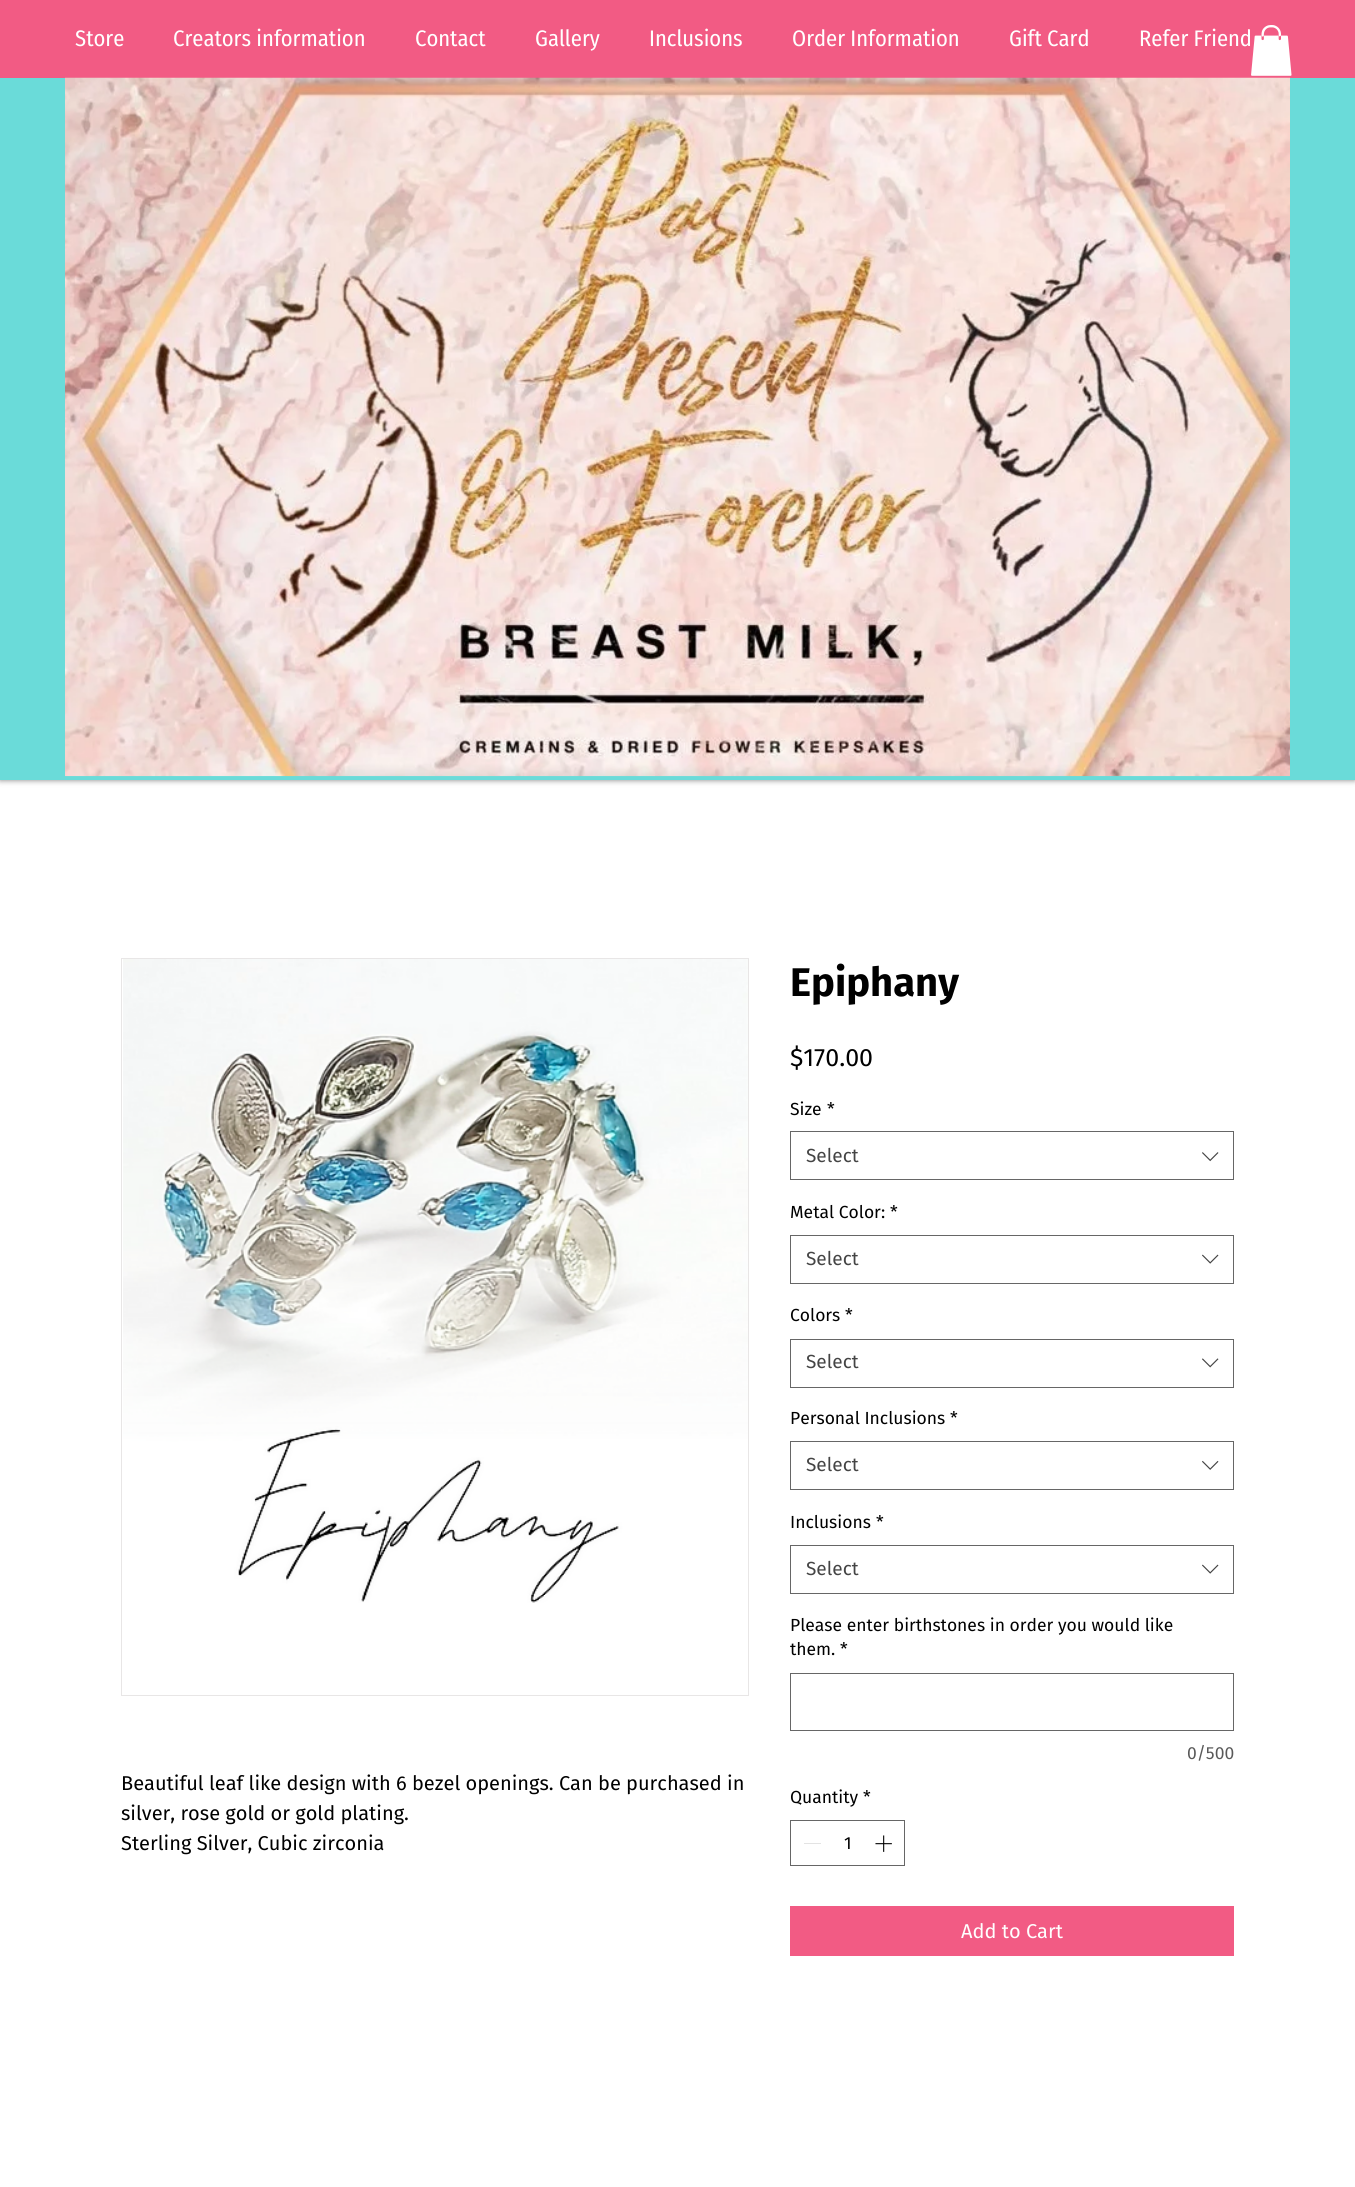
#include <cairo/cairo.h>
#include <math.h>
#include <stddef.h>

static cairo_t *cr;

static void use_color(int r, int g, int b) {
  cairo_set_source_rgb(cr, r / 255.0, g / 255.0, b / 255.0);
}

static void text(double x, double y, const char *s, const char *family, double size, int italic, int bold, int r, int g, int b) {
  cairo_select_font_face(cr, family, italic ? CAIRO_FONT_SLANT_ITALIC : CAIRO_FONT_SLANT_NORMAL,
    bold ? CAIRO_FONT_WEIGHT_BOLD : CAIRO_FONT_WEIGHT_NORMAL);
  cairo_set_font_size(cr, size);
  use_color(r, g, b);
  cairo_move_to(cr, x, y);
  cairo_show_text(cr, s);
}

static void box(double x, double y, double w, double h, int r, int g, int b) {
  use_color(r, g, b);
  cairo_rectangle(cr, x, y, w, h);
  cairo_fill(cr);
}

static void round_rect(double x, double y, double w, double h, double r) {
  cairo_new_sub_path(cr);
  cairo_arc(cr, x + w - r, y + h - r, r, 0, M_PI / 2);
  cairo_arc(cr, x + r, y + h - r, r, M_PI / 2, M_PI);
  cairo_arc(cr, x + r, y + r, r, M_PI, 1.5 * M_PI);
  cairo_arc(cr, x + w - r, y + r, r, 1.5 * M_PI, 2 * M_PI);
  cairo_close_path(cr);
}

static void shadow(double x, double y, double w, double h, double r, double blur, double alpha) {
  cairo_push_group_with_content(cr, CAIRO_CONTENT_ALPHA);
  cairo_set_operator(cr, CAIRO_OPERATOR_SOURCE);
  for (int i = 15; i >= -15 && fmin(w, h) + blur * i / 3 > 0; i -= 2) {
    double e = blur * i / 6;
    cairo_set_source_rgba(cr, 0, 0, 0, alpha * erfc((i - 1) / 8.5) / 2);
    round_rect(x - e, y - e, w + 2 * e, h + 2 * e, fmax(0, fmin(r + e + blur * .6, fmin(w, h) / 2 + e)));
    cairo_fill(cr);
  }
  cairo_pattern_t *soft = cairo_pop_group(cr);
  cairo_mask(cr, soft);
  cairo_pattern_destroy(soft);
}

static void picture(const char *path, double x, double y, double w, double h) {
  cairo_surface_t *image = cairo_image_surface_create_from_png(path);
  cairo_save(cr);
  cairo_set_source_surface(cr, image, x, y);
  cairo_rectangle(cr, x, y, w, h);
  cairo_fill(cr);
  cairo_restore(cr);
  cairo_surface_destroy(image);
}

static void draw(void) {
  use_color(255, 255, 255);
  cairo_paint(cr);
  use_color(0, 0, 0);
  shadow(0, 0, 1355, 780, 0, 3, 0.5);
  box(0, 78, 1355, 702, 106, 219, 217);
  box(0, 0, 1355, 78, 242, 91, 132);
  picture("img_01.png", 65, 77, 1225, 700);
  picture("img_02.png", 1251, 25, 41, 51);
  cairo_rectangle(cr, 121.5, 958.5, 627, 737);
  use_color(232, 230, 230);
  cairo_set_line_width(cr, 1);
  cairo_stroke(cr);
  picture("img_03.png", 123, 959, 625, 644);
  cairo_rectangle(cr, 790.5, 1131.5, 443, 48);
  use_color(102, 102, 102);
  cairo_stroke(cr);
  picture("img_04.png", 1202, 1152, 17, 10);
  cairo_rectangle(cr, 790.5, 1235.5, 443, 48);
  cairo_stroke(cr);
  picture("img_05.png", 1202, 1254, 17, 10);
  cairo_rectangle(cr, 790.5, 1339.5, 443, 48);
  cairo_stroke(cr);
  picture("img_06.png", 1202, 1358, 17, 10);
  cairo_rectangle(cr, 790.5, 1441.5, 443, 48);
  cairo_stroke(cr);
  picture("img_07.png", 1202, 1460, 17, 10);
  cairo_rectangle(cr, 790.5, 1545.5, 443, 48);
  cairo_stroke(cr);
  picture("img_05.png", 1202, 1564, 17, 10);
  cairo_rectangle(cr, 790.5, 1673.5, 443, 57);
  cairo_stroke(cr);
  cairo_rectangle(cr, 790.5, 1820.5, 114, 45);
  cairo_stroke(cr);
  box(804, 1843, 17, 1, 227, 227, 227);
  picture("img_08.png", 875, 1835, 17, 17);
  box(790, 1906, 444, 50, 242, 91, 132);
  text(75, 46, "Store", "Fira Sans Condensed", 22.5, 0, 0, 255, 255, 255);
  text(173, 46, "Creators information", "Fira Sans Condensed", 22.5, 0, 0, 255, 255, 255);
  text(415, 46, "Contact", "Fira Sans Condensed", 22.5, 0, 0, 255, 255, 255);
  text(535, 46, "Gallery", "Fira Sans Condensed", 22.5, 0, 0, 255, 255, 255);
  text(649, 46, "Inclusions", "Fira Sans Condensed", 22.5, 0, 0, 255, 255, 255);
  text(792, 46, "Order Information", "Fira Sans Condensed", 22.5, 0, 0, 255, 255, 255);
  text(1009, 46, "Gift Card", "Fira Sans Condensed", 22.5, 0, 0, 255, 255, 255);
  text(1139, 46, "Refer Friend", "Fira Sans Condensed", 22.5, 0, 0, 255, 255, 255);
  text(121, 1790, "Beautiful leaf like design with 6 bezel openings. Can be purchased in", "Fira Sans", 20, 0, 0, 0, 0, 0);
  text(121, 1820, "silver, rose gold or gold plating.", "Fira Sans", 20, 0, 0, 0, 0, 0);
  text(121, 1850, "Sterling Silver, Cubic zirconia", "Fira Sans", 20, 0, 0, 0, 0, 0);
  text(790, 996, "Epiphany", "Fira Sans", 40, 0, 1, 0, 0, 0);
  text(790, 1066, "$170.00", "Fira Sans", 25, 0, 0, 0, 0, 0);
  text(790, 1115, "Size", "Fira Sans", 17.5, 0, 0, 0, 0, 0);
  text(827, 1115, "*", "Fira Sans", 17.5, 0, 0, 0, 0, 0);
  text(806, 1162, "Select", "Fira Sans", 19, 0, 0, 68, 68, 68);
  text(790, 1218, "Metal Color:", "Fira Sans", 17.5, 0, 0, 0, 0, 0);
  text(890, 1218, "*", "Fira Sans", 17.5, 0, 0, 0, 0, 0);
  text(806, 1265, "Select", "Fira Sans", 19, 0, 0, 68, 68, 68);
  text(790, 1321, "Colors", "Fira Sans", 17.5, 0, 0, 0, 0, 0);
  text(845, 1321, "*", "Fira Sans", 17.5, 0, 0, 0, 0, 0);
  text(806, 1368, "Select", "Fira Sans", 19, 0, 0, 68, 68, 68);
  text(790, 1424, "Personal Inclusions", "Fira Sans", 17.5, 0, 0, 0, 0, 0);
  text(950, 1424, "*", "Fira Sans", 17.5, 0, 0, 0, 0, 0);
  text(806, 1471, "Select", "Fira Sans", 19, 0, 0, 68, 68, 68);
  text(790, 1528, "Inclusions", "Fira Sans", 17.5, 0, 0, 0, 0, 0);
  text(876, 1528, "*", "Fira Sans", 17.5, 0, 0, 0, 0, 0);
  text(806, 1575, "Select", "Fira Sans", 19, 0, 0, 68, 68, 68);
  text(790, 1631, "Please enter birthstones in order you would like", "Fira Sans", 17.5, 0, 0, 0, 0, 0);
  text(790, 1655, "them.", "Fira Sans", 17.5, 0, 0, 0, 0, 0);
  text(840, 1655, "*", "Fira Sans", 17.5, 0, 0, 0, 0, 0);
  text(1187, 1759, "0/500", "Fira Sans", 17.5, 0, 0, 89, 89, 89);
  text(790, 1803, "Quantity", "Fira Sans", 17.5, 0, 0, 0, 0, 0);
  text(863, 1803, "*", "Fira Sans", 17.5, 0, 0, 0, 0, 0);
  text(844, 1849, "1", "Fira Sans", 17.5, 0, 0, 0, 0, 0);
  text(961, 1938, "Add to Cart", "Fira Sans", 20, 0, 0, 255, 255, 255);
}

int main(void) {
  cairo_surface_t *surface = cairo_image_surface_create(CAIRO_FORMAT_RGB24, 1355, 2187);
  cr = cairo_create(surface);
  cairo_font_options_t *options = cairo_font_options_create();
  cairo_font_options_set_hint_metrics(options, CAIRO_HINT_METRICS_OFF);
  cairo_font_options_set_hint_style(options, CAIRO_HINT_STYLE_NONE);
  cairo_set_font_options(cr, options);
  cairo_set_miter_limit(cr, 4);
  draw();
  cairo_surface_write_to_png(surface, "out.png");
  cairo_font_options_destroy(options);
  cairo_destroy(cr);
  cairo_surface_destroy(surface);
  return 0;
}
